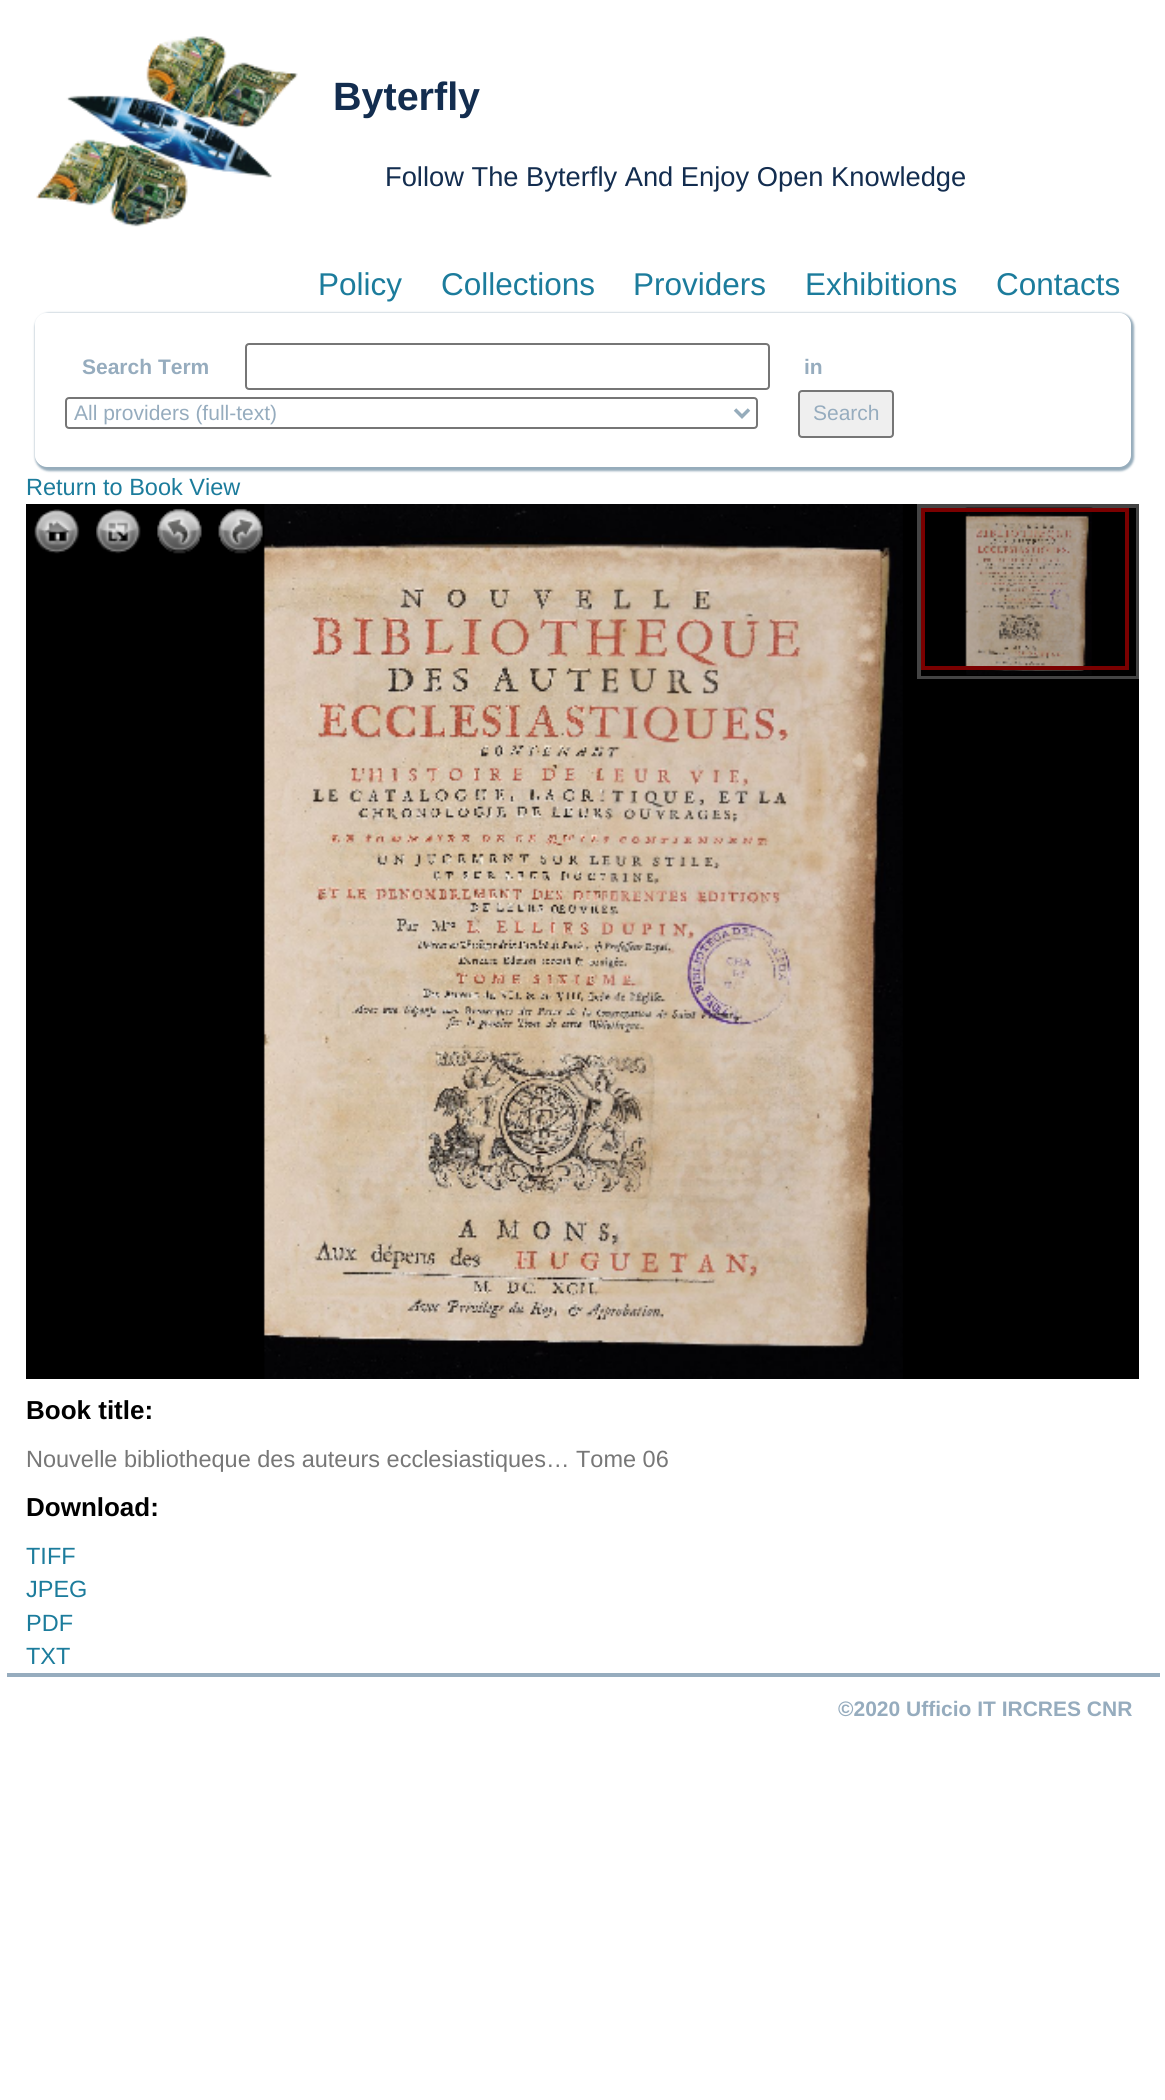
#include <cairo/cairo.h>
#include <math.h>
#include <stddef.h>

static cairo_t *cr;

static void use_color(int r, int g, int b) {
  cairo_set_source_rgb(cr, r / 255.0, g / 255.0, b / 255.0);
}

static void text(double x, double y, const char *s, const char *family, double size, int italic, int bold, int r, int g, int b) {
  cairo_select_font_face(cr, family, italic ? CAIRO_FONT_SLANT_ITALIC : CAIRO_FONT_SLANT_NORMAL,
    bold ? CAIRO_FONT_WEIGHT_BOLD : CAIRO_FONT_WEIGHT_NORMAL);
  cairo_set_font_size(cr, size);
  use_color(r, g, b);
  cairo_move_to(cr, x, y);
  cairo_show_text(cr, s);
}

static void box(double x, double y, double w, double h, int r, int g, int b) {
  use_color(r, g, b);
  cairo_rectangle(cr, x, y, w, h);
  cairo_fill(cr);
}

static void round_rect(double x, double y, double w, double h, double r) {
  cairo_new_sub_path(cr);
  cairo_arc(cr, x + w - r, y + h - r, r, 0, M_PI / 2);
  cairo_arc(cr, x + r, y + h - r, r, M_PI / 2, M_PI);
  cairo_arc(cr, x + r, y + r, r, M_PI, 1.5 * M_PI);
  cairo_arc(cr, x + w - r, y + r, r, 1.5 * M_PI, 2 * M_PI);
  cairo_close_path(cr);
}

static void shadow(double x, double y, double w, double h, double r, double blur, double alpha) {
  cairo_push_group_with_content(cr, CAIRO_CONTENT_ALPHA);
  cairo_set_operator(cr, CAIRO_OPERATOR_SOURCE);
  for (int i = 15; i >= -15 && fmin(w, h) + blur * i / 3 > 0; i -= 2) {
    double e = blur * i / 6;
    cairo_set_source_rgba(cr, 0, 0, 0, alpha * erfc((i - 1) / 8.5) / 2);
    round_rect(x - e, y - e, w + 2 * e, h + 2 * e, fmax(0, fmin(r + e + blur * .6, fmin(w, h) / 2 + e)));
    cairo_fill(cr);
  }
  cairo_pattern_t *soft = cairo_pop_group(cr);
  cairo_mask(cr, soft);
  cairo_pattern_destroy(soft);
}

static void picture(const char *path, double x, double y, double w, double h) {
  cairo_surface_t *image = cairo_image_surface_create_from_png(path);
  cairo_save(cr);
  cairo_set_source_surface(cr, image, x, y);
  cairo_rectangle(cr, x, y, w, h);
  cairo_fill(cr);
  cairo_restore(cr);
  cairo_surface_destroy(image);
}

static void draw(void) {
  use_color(255, 255, 255);
  cairo_paint(cr);
  picture("img_01.png", 36, 36, 262, 191);
  cairo_save(cr);
  cairo_set_fill_rule(cr, CAIRO_FILL_RULE_EVEN_ODD);
  cairo_new_path(cr);
  cairo_move_to(cr, 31, 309);
  cairo_line_to(cr, 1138, 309);
  cairo_line_to(cr, 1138, 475);
  cairo_line_to(cr, 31, 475);
  cairo_close_path(cr);
  cairo_move_to(cr, 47, 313);
  cairo_line_to(cr, 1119, 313);
  cairo_curve_to(cr, 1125.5, 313, 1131, 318.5, 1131, 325);
  cairo_line_to(cr, 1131, 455);
  cairo_curve_to(cr, 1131, 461.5, 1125.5, 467, 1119, 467);
  cairo_line_to(cr, 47, 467);
  cairo_curve_to(cr, 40.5, 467, 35, 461.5, 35, 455);
  cairo_line_to(cr, 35, 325);
  cairo_curve_to(cr, 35, 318.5, 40.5, 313, 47, 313);
  cairo_close_path(cr);
  cairo_clip(cr);
  use_color(150, 172, 187);
  shadow(35, 313, 1099, 158, 14, 1, 1);
  cairo_restore(cr);
  round_rect(246, 344, 523, 45, 3);
  use_color(118, 118, 118);
  cairo_stroke(cr);
  round_rect(66, 398, 691, 30, 3);
  cairo_stroke(cr);
  cairo_new_path(cr);
  cairo_move_to(cr, 735, 409.5);
  cairo_line_to(cr, 742, 416.5);
  cairo_line_to(cr, 749, 409.5);
  use_color(150, 172, 187);
  cairo_set_line_width(cr, 3.5);
  cairo_stroke(cr);
  use_color(239, 239, 239);
  round_rect(799, 391, 94, 46, 3);
  cairo_fill_preserve(cr);
  use_color(118, 118, 118);
  cairo_set_line_width(cr, 2);
  cairo_stroke(cr);
  box(26, 504, 1113, 875, 0, 0, 0);
  picture("img_02.png", 263, 504, 640, 875);
  picture("img_03.png", 34, 509, 46, 45);
  picture("img_04.png", 34, 509, 45, 44);
  picture("img_05.png", 96, 509, 45, 45);
  picture("img_06.png", 96, 509, 45, 44);
  picture("img_07.png", 157, 508, 45, 46);
  picture("img_08.png", 157, 509, 45, 45);
  picture("img_09.png", 218, 508, 45, 46);
  picture("img_10.png", 218, 509, 45, 45);
  cairo_rectangle(cr, 919, 506, 218, 171);
  use_color(68, 68, 68);
  cairo_set_line_width(cr, 4);
  cairo_stroke(cr);
  box(921, 508, 215, 168, 0, 0, 0);
  picture("img_11.png", 965, 507, 128, 168);
  cairo_rectangle(cr, 923, 510, 204, 158);
  use_color(122, 0, 0);
  cairo_stroke(cr);
  box(7, 1673, 1153, 4, 150, 172, 190);
  text(333, 110, "Byterfly", "Liberation Sans", 39.5, 0, 1, 19, 45, 79);
  text(385, 186, "Follow The Byterfly And Enjoy Open Knowledge", "Liberation Sans", 27.3, 0, 0, 19, 45, 79);
  text(318, 295, "Policy", "Liberation Sans", 31.5, 0, 0, 28, 124, 156);
  text(441, 295, "Collections", "Liberation Sans", 31.5, 0, 0, 28, 124, 156);
  text(633, 295, "Providers", "Liberation Sans", 31.5, 0, 0, 28, 124, 156);
  text(805, 295, "Exhibitions", "Liberation Sans", 31.5, 0, 0, 28, 124, 156);
  text(996, 295, "Contacts", "Liberation Sans", 31.5, 0, 0, 28, 124, 156);
  text(82, 374, "Search Term", "Liberation Sans", 21, 0, 1, 150, 172, 190);
  text(804, 374, "in", "Liberation Sans", 21, 0, 1, 150, 172, 190);
  text(74, 420, "All providers (full-text)", "Liberation Sans", 21, 0, 0, 150, 172, 190);
  text(813, 420, "Search", "Liberation Sans", 21, 0, 0, 150, 172, 190);
  text(26, 495, "Return to Book View", "Liberation Sans", 23.5, 0, 0, 28, 124, 156);
  text(26, 1419, "Book title:", "Liberation Sans", 26, 0, 1, 0, 0, 0);
  text(26, 1467, "Nouvelle bibliotheque des auteurs ecclesiastiques… Tome 06", "Liberation Sans", 23.5, 0, 0, 119, 119, 119);
  text(26, 1516, "Download:", "Liberation Sans", 26, 0, 1, 0, 0, 0);
  text(26, 1564, "TIFF", "Liberation Sans", 23.5, 0, 0, 28, 124, 156);
  text(26, 1597, "JPEG", "Liberation Sans", 23.5, 0, 0, 28, 124, 156);
  text(26, 1631, "PDF", "Liberation Sans", 23.5, 0, 0, 28, 124, 156);
  text(26, 1664, "TXT", "Liberation Sans", 23.5, 0, 0, 28, 124, 156);
  text(838, 1716, "©2020 Ufficio IT IRCRES CNR", "Liberation Sans", 21, 0, 1, 150, 172, 190);
}

int main(void) {
  cairo_surface_t *surface = cairo_image_surface_create(CAIRO_FORMAT_RGB24, 1165, 2100);
  cr = cairo_create(surface);
  cairo_font_options_t *options = cairo_font_options_create();
  cairo_font_options_set_hint_metrics(options, CAIRO_HINT_METRICS_OFF);
  cairo_font_options_set_hint_style(options, CAIRO_HINT_STYLE_NONE);
  cairo_set_font_options(cr, options);
  cairo_set_miter_limit(cr, 4);
  draw();
  cairo_surface_write_to_png(surface, "out.png");
  cairo_font_options_destroy(options);
  cairo_destroy(cr);
  cairo_surface_destroy(surface);
  return 0;
}
